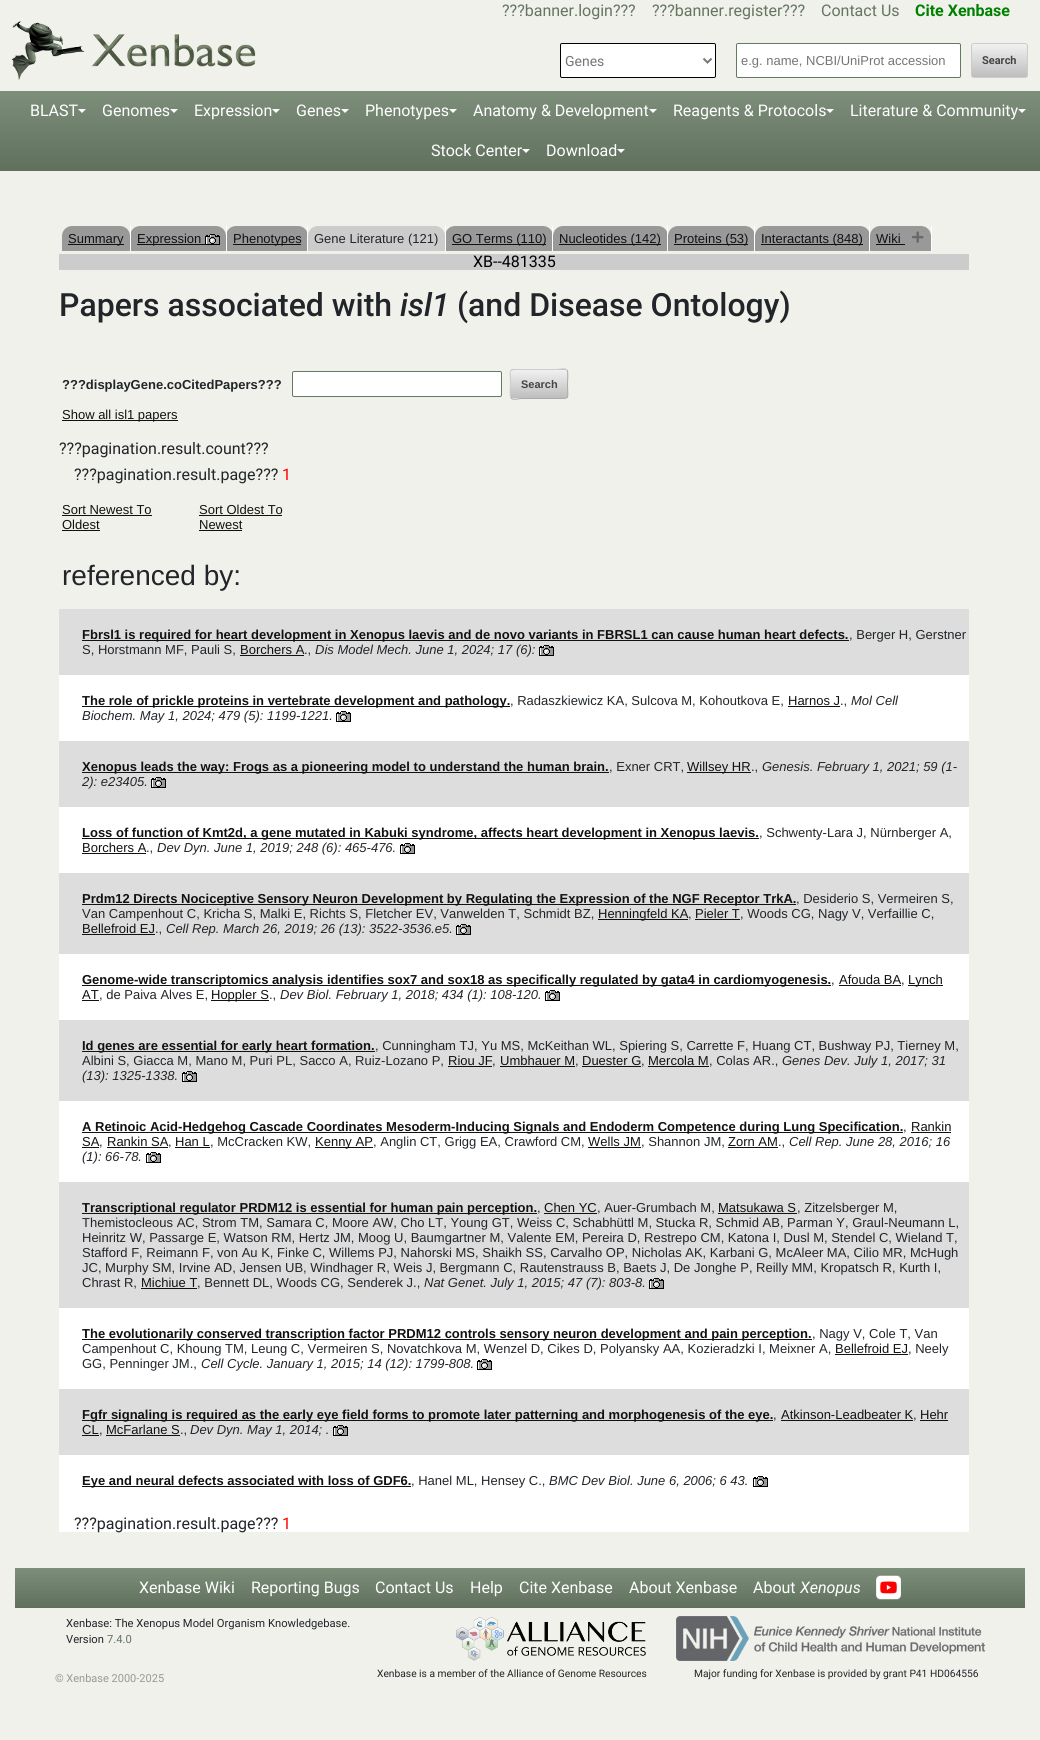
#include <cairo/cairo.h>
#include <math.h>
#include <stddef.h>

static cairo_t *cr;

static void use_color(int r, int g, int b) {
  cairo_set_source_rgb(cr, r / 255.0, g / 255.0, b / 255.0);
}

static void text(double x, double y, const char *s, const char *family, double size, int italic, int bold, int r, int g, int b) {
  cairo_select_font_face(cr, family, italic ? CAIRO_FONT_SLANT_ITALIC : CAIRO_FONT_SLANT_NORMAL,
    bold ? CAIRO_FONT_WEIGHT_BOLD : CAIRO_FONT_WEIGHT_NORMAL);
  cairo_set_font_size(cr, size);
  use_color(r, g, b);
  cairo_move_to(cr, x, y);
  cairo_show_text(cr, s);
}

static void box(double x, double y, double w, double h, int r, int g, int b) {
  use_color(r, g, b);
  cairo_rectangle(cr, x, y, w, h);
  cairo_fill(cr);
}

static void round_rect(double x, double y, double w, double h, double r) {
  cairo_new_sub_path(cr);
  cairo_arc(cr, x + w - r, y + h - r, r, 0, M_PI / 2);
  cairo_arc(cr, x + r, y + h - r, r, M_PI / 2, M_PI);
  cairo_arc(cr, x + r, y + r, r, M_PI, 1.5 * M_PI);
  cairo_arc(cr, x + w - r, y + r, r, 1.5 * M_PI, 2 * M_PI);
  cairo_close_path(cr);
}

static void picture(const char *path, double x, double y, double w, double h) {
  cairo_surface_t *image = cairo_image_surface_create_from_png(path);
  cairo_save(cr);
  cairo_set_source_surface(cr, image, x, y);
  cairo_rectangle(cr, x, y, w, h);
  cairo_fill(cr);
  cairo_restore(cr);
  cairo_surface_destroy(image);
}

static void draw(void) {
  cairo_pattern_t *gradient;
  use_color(240, 241, 234);
  cairo_paint(cr);
  picture("img_01.png", 11, 21, 245, 59);
  use_color(255, 255, 255);
  round_rect(560.5, 43.5, 155, 34, 1.5);
  cairo_fill_preserve(cr);
  use_color(0, 0, 0);
  cairo_set_line_width(cr, 1);
  cairo_stroke(cr);
  cairo_new_path(cr);
  cairo_move_to(cr, 703.5, 58.5);
  cairo_line_to(cr, 707.5, 62.5);
  cairo_line_to(cr, 711.5, 58.5);
  use_color(119, 119, 119);
  cairo_set_line_width(cr, 2);
  cairo_stroke(cr);
  use_color(255, 255, 255);
  round_rect(736.5, 43.5, 224, 34, 1.5);
  cairo_fill_preserve(cr);
  use_color(102, 119, 100);
  cairo_set_line_width(cr, 1);
  cairo_stroke(cr);
  cairo_save(cr);
  round_rect(971, 43, 57, 35, 3);
  cairo_clip(cr);
  gradient = cairo_pattern_create_linear(1000, 44, 1000, 77);
  cairo_pattern_add_color_stop_rgba(gradient, 0, 0.945, 0.945, 0.945, 1);
  cairo_pattern_add_color_stop_rgba(gradient, 1, 0.745, 0.745, 0.745, 1);
  cairo_set_source(cr, gradient);
  cairo_pattern_destroy(gradient);
  cairo_rectangle(cr, 971, 44, 57, 33);
  cairo_fill(cr);
  cairo_restore(cr);
  round_rect(971.5, 43.5, 56, 34, 2.5);
  use_color(204, 204, 204);
  cairo_stroke(cr);
  gradient = cairo_pattern_create_linear(520, 91, 520, 171);
  cairo_pattern_add_color_stop_rgba(gradient, 0, 0.49, 0.557, 0.482, 1);
  cairo_pattern_add_color_stop_rgba(gradient, 1, 0.373, 0.439, 0.365, 1);
  cairo_set_source(cr, gradient);
  cairo_pattern_destroy(gradient);
  cairo_rectangle(cr, 0, 91, 1040, 80);
  cairo_fill(cr);
  use_color(255, 255, 255);
  cairo_new_path(cr);
  cairo_move_to(cr, 78, 109);
  cairo_line_to(cr, 86, 109);
  cairo_line_to(cr, 82, 113);
  cairo_close_path(cr);
  cairo_fill(cr);
  cairo_new_path(cr);
  cairo_move_to(cr, 170, 109);
  cairo_line_to(cr, 178, 109);
  cairo_line_to(cr, 174, 113);
  cairo_close_path(cr);
  cairo_fill(cr);
  cairo_new_path(cr);
  cairo_move_to(cr, 272, 109);
  cairo_line_to(cr, 280, 109);
  cairo_line_to(cr, 276, 113);
  cairo_close_path(cr);
  cairo_fill(cr);
  cairo_new_path(cr);
  cairo_move_to(cr, 341, 109);
  cairo_line_to(cr, 349, 109);
  cairo_line_to(cr, 345, 113);
  cairo_close_path(cr);
  cairo_fill(cr);
  cairo_new_path(cr);
  cairo_move_to(cr, 449, 109);
  cairo_line_to(cr, 457, 109);
  cairo_line_to(cr, 453, 113);
  cairo_close_path(cr);
  cairo_fill(cr);
  cairo_new_path(cr);
  cairo_move_to(cr, 649, 109);
  cairo_line_to(cr, 657, 109);
  cairo_line_to(cr, 653, 113);
  cairo_close_path(cr);
  cairo_fill(cr);
  cairo_new_path(cr);
  cairo_move_to(cr, 826, 109);
  cairo_line_to(cr, 834, 109);
  cairo_line_to(cr, 830, 113);
  cairo_close_path(cr);
  cairo_fill(cr);
  cairo_new_path(cr);
  cairo_move_to(cr, 1018, 109);
  cairo_line_to(cr, 1026, 109);
  cairo_line_to(cr, 1022, 113);
  cairo_close_path(cr);
  cairo_fill(cr);
  cairo_new_path(cr);
  cairo_move_to(cr, 522, 149);
  cairo_line_to(cr, 530, 149);
  cairo_line_to(cr, 526, 153);
  cairo_close_path(cr);
  cairo_fill(cr);
  cairo_new_path(cr);
  cairo_move_to(cr, 617, 149);
  cairo_line_to(cr, 625, 149);
  cairo_line_to(cr, 621, 153);
  cairo_close_path(cr);
  cairo_fill(cr);
  use_color(153, 153, 153);
  cairo_new_path(cr);
  cairo_move_to(cr, 72, 226);
  cairo_line_to(cr, 120, 226);
  cairo_curve_to(cr, 125.5, 226, 130, 230.5, 130, 236);
  cairo_line_to(cr, 130, 251);
  cairo_line_to(cr, 62, 251);
  cairo_line_to(cr, 62, 236);
  cairo_curve_to(cr, 62, 230.5, 66.5, 226, 72, 226);
  cairo_close_path(cr);
  cairo_fill(cr);
  cairo_new_path(cr);
  cairo_move_to(cr, 140, 226);
  cairo_line_to(cr, 216, 226);
  cairo_curve_to(cr, 221.5, 226, 226, 230.5, 226, 236);
  cairo_line_to(cr, 226, 251);
  cairo_line_to(cr, 130, 251);
  cairo_line_to(cr, 130, 236);
  cairo_curve_to(cr, 130, 230.5, 134.5, 226, 140, 226);
  cairo_close_path(cr);
  cairo_fill(cr);
  box(130, 226, 1, 26, 255, 255, 255);
  box(68, 244, 56, 1, 17, 17, 17);
  use_color(153, 153, 153);
  cairo_new_path(cr);
  cairo_move_to(cr, 236, 226);
  cairo_line_to(cr, 298, 226);
  cairo_curve_to(cr, 303.5, 226, 308, 230.5, 308, 236);
  cairo_line_to(cr, 308, 251);
  cairo_line_to(cr, 226, 251);
  cairo_line_to(cr, 226, 236);
  cairo_curve_to(cr, 226, 230.5, 230.5, 226, 236, 226);
  cairo_close_path(cr);
  cairo_fill(cr);
  box(226, 226, 1, 26, 255, 255, 255);
  box(137, 244, 68, 1, 17, 17, 17);
  picture("img_02.png", 205, 234, 15, 11);
  box(307, 226, 1, 26, 255, 255, 255);
  box(233, 244, 68, 1, 17, 17, 17);
  use_color(204, 204, 204);
  cairo_new_path(cr);
  cairo_move_to(cr, 318, 226);
  cairo_line_to(cr, 435, 226);
  cairo_curve_to(cr, 440.5, 226, 445, 230.5, 445, 236);
  cairo_line_to(cr, 445, 251);
  cairo_line_to(cr, 308, 251);
  cairo_line_to(cr, 308, 236);
  cairo_curve_to(cr, 308, 230.5, 312.5, 226, 318, 226);
  cairo_close_path(cr);
  cairo_fill(cr);
  use_color(153, 153, 153);
  cairo_new_path(cr);
  cairo_move_to(cr, 455, 226);
  cairo_line_to(cr, 543, 226);
  cairo_curve_to(cr, 548.5, 226, 553, 230.5, 553, 236);
  cairo_line_to(cr, 553, 251);
  cairo_line_to(cr, 445, 251);
  cairo_line_to(cr, 445, 236);
  cairo_curve_to(cr, 445, 230.5, 449.5, 226, 455, 226);
  cairo_close_path(cr);
  cairo_fill(cr);
  box(445, 226, 1, 26, 255, 255, 255);
  box(552, 226, 1, 26, 255, 255, 255);
  box(452, 244, 94, 1, 17, 17, 17);
  use_color(153, 153, 153);
  cairo_new_path(cr);
  cairo_move_to(cr, 563, 226);
  cairo_line_to(cr, 658, 226);
  cairo_curve_to(cr, 663.5, 226, 668, 230.5, 668, 236);
  cairo_line_to(cr, 668, 251);
  cairo_line_to(cr, 553, 251);
  cairo_line_to(cr, 553, 236);
  cairo_curve_to(cr, 553, 230.5, 557.5, 226, 563, 226);
  cairo_close_path(cr);
  cairo_fill(cr);
  box(667, 226, 1, 26, 255, 255, 255);
  box(559, 244, 102, 1, 17, 17, 17);
  use_color(153, 153, 153);
  cairo_new_path(cr);
  cairo_move_to(cr, 678, 226);
  cairo_line_to(cr, 745, 226);
  cairo_curve_to(cr, 750.5, 226, 755, 230.5, 755, 236);
  cairo_line_to(cr, 755, 251);
  cairo_line_to(cr, 668, 251);
  cairo_line_to(cr, 668, 236);
  cairo_curve_to(cr, 668, 230.5, 672.5, 226, 678, 226);
  cairo_close_path(cr);
  cairo_fill(cr);
  box(754, 226, 1, 26, 255, 255, 255);
  box(674, 244, 74, 1, 17, 17, 17);
  use_color(153, 153, 153);
  cairo_new_path(cr);
  cairo_move_to(cr, 765, 226);
  cairo_line_to(cr, 860, 226);
  cairo_curve_to(cr, 865.5, 226, 870, 230.5, 870, 236);
  cairo_line_to(cr, 870, 251);
  cairo_line_to(cr, 755, 251);
  cairo_line_to(cr, 755, 236);
  cairo_curve_to(cr, 755, 230.5, 759.5, 226, 765, 226);
  cairo_close_path(cr);
  cairo_fill(cr);
  box(869, 226, 1, 26, 255, 255, 255);
  box(761, 244, 102, 1, 17, 17, 17);
  use_color(153, 153, 153);
  cairo_new_path(cr);
  cairo_move_to(cr, 880, 226);
  cairo_line_to(cr, 921, 226);
  cairo_curve_to(cr, 926.5, 226, 931, 230.5, 931, 236);
  cairo_line_to(cr, 931, 251);
  cairo_line_to(cr, 870, 251);
  cairo_line_to(cr, 870, 236);
  cairo_curve_to(cr, 870, 230.5, 874.5, 226, 880, 226);
  cairo_close_path(cr);
  cairo_fill(cr);
  box(931, 226, 1, 26, 255, 255, 255);
  box(876, 244, 29, 1, 17, 17, 17);
  picture("img_03.png", 912, 231, 12, 12);
  box(59, 254, 910, 16, 204, 204, 204);
  use_color(255, 255, 255);
  round_rect(292.5, 371.5, 209, 25, 1.5);
  cairo_fill_preserve(cr);
  use_color(102, 119, 100);
  cairo_stroke(cr);
  cairo_save(cr);
  round_rect(510, 369, 58, 30, 3);
  cairo_clip(cr);
  gradient = cairo_pattern_create_linear(539, 342, 539, 370);
  cairo_pattern_add_color_stop_rgba(gradient, 0, 0.945, 0.945, 0.945, 1);
  cairo_pattern_add_color_stop_rgba(gradient, 1, 0.745, 0.745, 0.745, 1);
  cairo_set_source(cr, gradient);
  cairo_pattern_destroy(gradient);
  cairo_rectangle(cr, 510, 369, 58, 1);
  cairo_fill(cr);
  gradient = cairo_pattern_create_linear(539, 370, 539, 398);
  cairo_pattern_add_color_stop_rgba(gradient, 0, 0.945, 0.945, 0.945, 1);
  cairo_pattern_add_color_stop_rgba(gradient, 1, 0.745, 0.745, 0.745, 1);
  cairo_set_source(cr, gradient);
  cairo_pattern_destroy(gradient);
  cairo_rectangle(cr, 510, 370, 58, 28);
  cairo_fill(cr);
  gradient = cairo_pattern_create_linear(539, 398, 539, 426);
  cairo_pattern_add_color_stop_rgba(gradient, 0, 0.945, 0.945, 0.945, 1);
  cairo_pattern_add_color_stop_rgba(gradient, 1, 0.745, 0.745, 0.745, 1);
  cairo_set_source(cr, gradient);
  cairo_pattern_destroy(gradient);
  cairo_rectangle(cr, 510, 398, 58, 1);
  cairo_fill(cr);
  cairo_restore(cr);
  cairo_new_path(cr);
  cairo_move_to(cr, 567, 370);
  cairo_curve_to(cr, 568.5, 372, 567.5, 381.5, 567.5, 384);
  cairo_curve_to(cr, 567.5, 399.5, 571, 398.5, 556.5, 398.5);
  cairo_line_to(cr, 521.5, 398.5);
  cairo_curve_to(cr, 518, 398.5, 513.5, 400.5, 511, 398);
  use_color(170, 170, 170);
  cairo_stroke(cr);
  cairo_new_path(cr);
  cairo_move_to(cr, 511, 398);
  cairo_curve_to(cr, 509.5, 396, 510.5, 386.5, 510.5, 384);
  cairo_curve_to(cr, 510.5, 368.5, 507, 369.5, 521.5, 369.5);
  cairo_line_to(cr, 556.5, 369.5);
  cairo_curve_to(cr, 560, 369.5, 564.5, 367.5, 567, 370);
  use_color(204, 204, 204);
  cairo_stroke(cr);
  box(62, 420, 116, 1, 17, 17, 17);
  box(62, 515, 90, 1, 17, 17, 17);
  box(62, 530, 38, 1, 17, 17, 17);
  box(199, 515, 83, 1, 17, 17, 17);
  box(199, 530, 43, 1, 17, 17, 17);
  box(59, 609, 910, 66, 221, 221, 221);
  box(82, 640, 767, 1, 17, 17, 17);
  box(240, 655, 64, 1, 17, 17, 17);
  picture("img_04.png", 539, 645, 15, 11);
  box(59, 675, 910, 66, 255, 255, 255);
  box(82, 706, 428, 1, 17, 17, 17);
  box(788, 706, 52, 1, 17, 17, 17);
  picture("img_05.png", 336, 711, 15, 11);
  box(59, 741, 910, 66, 221, 221, 221);
  box(82, 772, 527, 1, 17, 17, 17);
  box(687, 772, 64, 1, 17, 17, 17);
  picture("img_04.png", 151, 777, 15, 11);
  box(59, 807, 910, 66, 255, 255, 255);
  box(82, 838, 677, 1, 17, 17, 17);
  box(82, 853, 64, 1, 17, 17, 17);
  picture("img_05.png", 400, 843, 15, 11);
  box(59, 873, 910, 81, 221, 221, 221);
  box(82, 904, 714, 1, 17, 17, 17);
  box(598, 919, 90, 1, 17, 17, 17);
  box(695, 919, 45, 1, 17, 17, 17);
  box(82, 934, 73, 1, 17, 17, 17);
  picture("img_04.png", 456, 924, 15, 11);
  box(59, 954, 910, 66, 255, 255, 255);
  box(82, 985, 749, 1, 17, 17, 17);
  box(839, 985, 62, 1, 17, 17, 17);
  box(908, 985, 35, 1, 17, 17, 17);
  box(82, 1000, 17, 1, 17, 17, 17);
  box(211, 1000, 58, 1, 17, 17, 17);
  picture("img_05.png", 545, 990, 15, 11);
  box(59, 1020, 910, 81, 221, 221, 221);
  box(82, 1051, 293, 1, 17, 17, 17);
  box(448, 1066, 44, 1, 17, 17, 17);
  box(500, 1066, 75, 1, 17, 17, 17);
  box(582, 1066, 59, 1, 17, 17, 17);
  box(648, 1066, 61, 1, 17, 17, 17);
  picture("img_04.png", 182, 1071, 15, 11);
  box(59, 1101, 910, 81, 255, 255, 255);
  box(82, 1132, 821, 1, 17, 17, 17);
  box(911, 1132, 40, 1, 17, 17, 17);
  box(82, 1147, 17, 1, 17, 17, 17);
  box(107, 1147, 61, 1, 17, 17, 17);
  box(175, 1147, 35, 1, 17, 17, 17);
  box(315, 1147, 58, 1, 17, 17, 17);
  box(588, 1147, 53, 1, 17, 17, 17);
  box(728, 1147, 50, 1, 17, 17, 17);
  picture("img_05.png", 146, 1152, 15, 11);
  box(59, 1182, 910, 126, 221, 221, 221);
  box(82, 1213, 455, 1, 17, 17, 17);
  box(544, 1213, 53, 1, 17, 17, 17);
  box(718, 1213, 79, 1, 17, 17, 17);
  box(141, 1288, 56, 1, 17, 17, 17);
  picture("img_04.png", 649, 1278, 15, 11);
  box(59, 1308, 910, 81, 255, 255, 255);
  box(82, 1339, 730, 1, 17, 17, 17);
  box(835, 1354, 73, 1, 17, 17, 17);
  picture("img_05.png", 477, 1359, 15, 11);
  box(59, 1389, 910, 66, 221, 221, 221);
  box(82, 1420, 691, 1, 17, 17, 17);
  box(781, 1420, 132, 1, 17, 17, 17);
  box(920, 1420, 28, 1, 17, 17, 17);
  box(82, 1435, 17, 1, 17, 17, 17);
  box(106, 1435, 74, 1, 17, 17, 17);
  picture("img_04.png", 333, 1425, 15, 11);
  box(59, 1455, 910, 77, 255, 255, 255);
  box(82, 1486, 329, 1, 17, 17, 17);
  picture("img_05.png", 753, 1476, 15, 11);
  gradient = cairo_pattern_create_linear(520, 1568, 520, 1608);
  cairo_pattern_add_color_stop_rgba(gradient, 0, 0.49, 0.557, 0.482, 1);
  cairo_pattern_add_color_stop_rgba(gradient, 1, 0.373, 0.439, 0.365, 1);
  cairo_set_source(cr, gradient);
  cairo_pattern_destroy(gradient);
  cairo_rectangle(cr, 15, 1568, 1010, 40);
  cairo_fill(cr);
  picture("img_06.png", 876, 1575, 25, 25);
  picture("img_07.png", 456, 1616, 190, 45);
  picture("img_08.png", 676, 1616, 309, 45);
  text(502, 16, "?\077?banner.login?\077?", "Roboto", 16, 0, 0, 100, 117, 98);
  text(652, 16, "?\077?banner.register?\077?", "Roboto", 16, 0, 0, 100, 117, 98);
  text(821, 16, "Contact Us", "Roboto", 16, 0, 0, 100, 117, 98);
  text(915, 16, "Cite Xenbase", "Roboto", 16, 0, 1, 0, 128, 0);
  text(565, 66, "Genes", "Roboto", 14, 0, 0, 117, 117, 117);
  text(741, 65, "e.g. name, NCBI/UniProt accession", "Liberation Sans", 13, 0, 0, 117, 117, 117);
  text(982, 64, "Search", "Roboto", 11, 0, 1, 68, 68, 68);
  text(30, 116, "BLAST", "Roboto", 16, 0, 0, 255, 255, 255);
  text(102, 116, "Genomes", "Roboto", 16, 0, 0, 255, 255, 255);
  text(194, 116, "Expression", "Roboto", 16, 0, 0, 255, 255, 255);
  text(296, 116, "Genes", "Roboto", 16, 0, 0, 255, 255, 255);
  text(365, 116, "Phenotypes", "Roboto", 16, 0, 0, 255, 255, 255);
  text(473, 116, "Anatomy & Development", "Roboto", 16, 0, 0, 255, 255, 255);
  text(673, 116, "Reagents & Protocols", "Roboto", 16, 0, 0, 255, 255, 255);
  text(850, 116, "Literature & Community", "Roboto", 16, 0, 0, 255, 255, 255);
  text(431, 156, "Stock Center", "Roboto", 16, 0, 0, 255, 255, 255);
  text(546, 156, "Download", "Roboto", 16, 0, 0, 255, 255, 255);
  text(68, 243, "Summary", "Liberation Sans", 13, 0, 0, 17, 17, 17);
  text(137, 243, "Expression", "Liberation Sans", 13, 0, 0, 17, 17, 17);
  text(233, 243, "Phenotypes", "Liberation Sans", 13, 0, 0, 17, 17, 17);
  text(314, 243, "Gene Literature (121)", "Liberation Sans", 13, 0, 0, 33, 37, 41);
  text(452, 243, "GO Terms (110)", "Liberation Sans", 13, 0, 0, 17, 17, 17);
  text(559, 243, "Nucleotides (142)", "Liberation Sans", 13, 0, 0, 17, 17, 17);
  text(674, 243, "Proteins (53)", "Liberation Sans", 13, 0, 0, 17, 17, 17);
  text(761, 243, "Interactants (848)", "Liberation Sans", 13, 0, 0, 17, 17, 17);
  text(876, 243, "Wiki", "Liberation Sans", 13, 0, 0, 17, 17, 17);
  text(473, 267, "XB--481335", "Roboto", 16, 0, 0, 0, 0, 0);
  text(59, 316, "Papers associated with", "Roboto Medium", 32, 0, 0, 33, 37, 41);
  text(400, 316, "isl1", "Roboto Medium", 32, 1, 0, 33, 37, 41);
  text(457, 316, "(and Disease Ontology)", "Roboto Medium", 32, 0, 0, 33, 37, 41);
  text(62, 389, "?\077?displayGene.coCitedPapers?\077?", "Liberation Sans", 13, 0, 1, 33, 37, 41);
  text(521, 388, "Search", "Liberation Sans", 11, 0, 1, 68, 68, 68);
  text(62, 419, "Show all isl1 papers", "Liberation Sans", 13, 0, 0, 17, 17, 17);
  text(59, 454, "?\077?pagination.result.count?\077?", "Roboto", 16, 0, 0, 33, 37, 41);
  text(74, 480, "?\077?pagination.result.page?\077?", "Roboto", 16, 0, 0, 33, 37, 41);
  text(282, 480, "1", "Roboto", 16, 0, 0, 255, 0, 0);
  text(62, 514, "Sort Newest To", "Liberation Sans", 13, 0, 0, 17, 17, 17);
  text(62, 529, "Oldest", "Liberation Sans", 13, 0, 0, 17, 17, 17);
  text(199, 514, "Sort Oldest To", "Liberation Sans", 13, 0, 0, 17, 17, 17);
  text(199, 529, "Newest", "Liberation Sans", 13, 0, 0, 17, 17, 17);
  text(62, 585, "referenced by:", "Liberation Sans", 28, 0, 0, 33, 37, 41);
  text(82, 639, "Fbrsl1 is required for heart development in Xenopus laevis and de novo variants in FBRSL1 can cause human heart defects.", "Liberation Sans", 13, 0, 1, 17, 17, 17);
  text(849, 639, ", Berger H, Gerstner", "Liberation Sans", 13, 0, 0, 33, 37, 41);
  text(82, 654, "S, Horstmann MF, Pauli S,", "Liberation Sans", 13, 0, 0, 33, 37, 41);
  text(240, 654, "Borchers A", "Liberation Sans", 13, 0, 0, 17, 17, 17);
  text(304, 654, ".,", "Liberation Sans", 13, 0, 0, 33, 37, 41);
  text(315, 654, "Dis Model Mech. June 1, 2024; 17 (6):", "Liberation Sans", 13, 1, 0, 33, 37, 41);
  text(82, 705, "The role of prickle proteins in vertebrate development and pathology.", "Liberation Sans", 13, 0, 1, 17, 17, 17);
  text(510, 705, ", Radaszkiewicz KA, Sulcova M, Kohoutkova E,", "Liberation Sans", 13, 0, 0, 33, 37, 41);
  text(788, 705, "Harnos J", "Liberation Sans", 13, 0, 0, 17, 17, 17);
  text(840, 705, ".,", "Liberation Sans", 13, 0, 0, 33, 37, 41);
  text(851, 705, "Mol Cell", "Liberation Sans", 13, 1, 0, 33, 37, 41);
  text(82, 720, "Biochem. May 1, 2024; 479 (5): 1199-1221.", "Liberation Sans", 13, 1, 0, 33, 37, 41);
  text(82, 771, "Xenopus leads the way: Frogs as a pioneering model to understand the human brain.", "Liberation Sans", 13, 0, 1, 17, 17, 17);
  text(609, 771, ", Exner CRT,", "Liberation Sans", 13, 0, 0, 33, 37, 41);
  text(687, 771, "Willsey HR", "Liberation Sans", 13, 0, 0, 17, 17, 17);
  text(751, 771, ".,", "Liberation Sans", 13, 0, 0, 33, 37, 41);
  text(762, 771, "Genesis. February 1, 2021; 59 (1-", "Liberation Sans", 13, 1, 0, 33, 37, 41);
  text(82, 786, "2): e23405.", "Liberation Sans", 13, 1, 0, 33, 37, 41);
  text(82, 837, "Loss of function of Kmt2d, a gene mutated in Kabuki syndrome, affects heart development in Xenopus laevis.", "Liberation Sans", 13, 0, 1, 17, 17, 17);
  text(759, 837, ", Schwenty-Lara J, Nürnberger A,", "Liberation Sans", 13, 0, 0, 33, 37, 41);
  text(82, 852, "Borchers A", "Liberation Sans", 13, 0, 0, 17, 17, 17);
  text(146, 852, ".,", "Liberation Sans", 13, 0, 0, 33, 37, 41);
  text(157, 852, "Dev Dyn. June 1, 2019; 248 (6): 465-476.", "Liberation Sans", 13, 1, 0, 33, 37, 41);
  text(82, 903, "Prdm12 Directs Nociceptive Sensory Neuron Development by Regulating the Expression of the NGF Receptor TrkA.", "Liberation Sans", 13, 0, 1, 17, 17, 17);
  text(796, 903, ", Desiderio S, Vermeiren S,", "Liberation Sans", 13, 0, 0, 33, 37, 41);
  text(82, 918, "Van Campenhout C, Kricha S, Malki E, Richts S, Fletcher EV, Vanwelden T, Schmidt BZ,", "Liberation Sans", 13, 0, 0, 33, 37, 41);
  text(598, 918, "Henningfeld KA", "Liberation Sans", 13, 0, 0, 17, 17, 17);
  text(688, 918, ",", "Liberation Sans", 13, 0, 0, 33, 37, 41);
  text(695, 918, "Pieler T", "Liberation Sans", 13, 0, 0, 17, 17, 17);
  text(740, 918, ", Woods CG, Nagy V, Verfaillie C,", "Liberation Sans", 13, 0, 0, 33, 37, 41);
  text(82, 933, "Bellefroid EJ", "Liberation Sans", 13, 0, 0, 17, 17, 17);
  text(155, 933, ".,", "Liberation Sans", 13, 0, 0, 33, 37, 41);
  text(166, 933, "Cell Rep. March 26, 2019; 26 (13): 3522-3536.e5.", "Liberation Sans", 13, 1, 0, 33, 37, 41);
  text(82, 984, "Genome-wide transcriptomics analysis identifies sox7 and sox18 as specifically regulated by gata4 in cardiomyogenesis.", "Liberation Sans", 13, 0, 1, 17, 17, 17);
  text(831, 984, ",", "Liberation Sans", 13, 0, 0, 33, 37, 41);
  text(839, 984, "Afouda BA", "Liberation Sans", 13, 0, 0, 17, 17, 17);
  text(901, 984, ",", "Liberation Sans", 13, 0, 0, 33, 37, 41);
  text(908, 984, "Lynch", "Liberation Sans", 13, 0, 0, 17, 17, 17);
  text(82, 999, "AT", "Liberation Sans", 13, 0, 0, 17, 17, 17);
  text(99, 999, ", de Paiva Alves E,", "Liberation Sans", 13, 0, 0, 33, 37, 41);
  text(211, 999, "Hoppler S", "Liberation Sans", 13, 0, 0, 17, 17, 17);
  text(269, 999, ".,", "Liberation Sans", 13, 0, 0, 33, 37, 41);
  text(280, 999, "Dev Biol. February 1, 2018; 434 (1): 108-120.", "Liberation Sans", 13, 1, 0, 33, 37, 41);
  text(82, 1050, "Id genes are essential for early heart formation.", "Liberation Sans", 13, 0, 1, 17, 17, 17);
  text(375, 1050, ", Cunningham TJ, Yu MS, McKeithan WL, Spiering S, Carrette F, Huang CT, Bushway PJ, Tierney M,", "Liberation Sans", 13, 0, 0, 33, 37, 41);
  text(82, 1065, "Albini S, Giacca M, Mano M, Puri PL, Sacco A, Ruiz-Lozano P,", "Liberation Sans", 13, 0, 0, 33, 37, 41);
  text(448, 1065, "Riou JF", "Liberation Sans", 13, 0, 0, 17, 17, 17);
  text(492, 1065, ",", "Liberation Sans", 13, 0, 0, 33, 37, 41);
  text(500, 1065, "Umbhauer M", "Liberation Sans", 13, 0, 0, 17, 17, 17);
  text(575, 1065, ",", "Liberation Sans", 13, 0, 0, 33, 37, 41);
  text(582, 1065, "Duester G", "Liberation Sans", 13, 0, 0, 17, 17, 17);
  text(641, 1065, ",", "Liberation Sans", 13, 0, 0, 33, 37, 41);
  text(648, 1065, "Mercola M", "Liberation Sans", 13, 0, 0, 17, 17, 17);
  text(709, 1065, ", Colas AR.,", "Liberation Sans", 13, 0, 0, 33, 37, 41);
  text(782, 1065, "Genes Dev. July 1, 2017; 31", "Liberation Sans", 13, 1, 0, 33, 37, 41);
  text(82, 1080, "(13): 1325-1338.", "Liberation Sans", 13, 1, 0, 33, 37, 41);
  text(82, 1131, "A Retinoic Acid-Hedgehog Cascade Coordinates Mesoderm-Inducing Signals and Endoderm Competence during Lung Specification.", "Liberation Sans", 13, 0, 1, 17, 17, 17);
  text(903, 1131, ",", "Liberation Sans", 13, 0, 0, 33, 37, 41);
  text(911, 1131, "Rankin", "Liberation Sans", 13, 0, 0, 17, 17, 17);
  text(82, 1146, "SA", "Liberation Sans", 13, 0, 0, 17, 17, 17);
  text(99, 1146, ",", "Liberation Sans", 13, 0, 0, 33, 37, 41);
  text(107, 1146, "Rankin SA", "Liberation Sans", 13, 0, 0, 17, 17, 17);
  text(168, 1146, ",", "Liberation Sans", 13, 0, 0, 33, 37, 41);
  text(175, 1146, "Han L", "Liberation Sans", 13, 0, 0, 17, 17, 17);
  text(210, 1146, ", McCracken KW,", "Liberation Sans", 13, 0, 0, 33, 37, 41);
  text(315, 1146, "Kenny AP", "Liberation Sans", 13, 0, 0, 17, 17, 17);
  text(373, 1146, ", Anglin CT, Grigg EA, Crawford CM,", "Liberation Sans", 13, 0, 0, 33, 37, 41);
  text(588, 1146, "Wells JM", "Liberation Sans", 13, 0, 0, 17, 17, 17);
  text(641, 1146, ", Shannon JM,", "Liberation Sans", 13, 0, 0, 33, 37, 41);
  text(728, 1146, "Zorn AM", "Liberation Sans", 13, 0, 0, 17, 17, 17);
  text(778, 1146, ".,", "Liberation Sans", 13, 0, 0, 33, 37, 41);
  text(789, 1146, "Cell Rep. June 28, 2016; 16", "Liberation Sans", 13, 1, 0, 33, 37, 41);
  text(82, 1161, "(1): 66-78.", "Liberation Sans", 13, 1, 0, 33, 37, 41);
  text(82, 1212, "Transcriptional regulator PRDM12 is essential for human pain perception.", "Liberation Sans", 13, 0, 1, 17, 17, 17);
  text(537, 1212, ",", "Liberation Sans", 13, 0, 0, 33, 37, 41);
  text(544, 1212, "Chen YC", "Liberation Sans", 13, 0, 0, 17, 17, 17);
  text(597, 1212, ", Auer-Grumbach M,", "Liberation Sans", 13, 0, 0, 33, 37, 41);
  text(718, 1212, "Matsukawa S", "Liberation Sans", 13, 0, 0, 17, 17, 17);
  text(797, 1212, ", Zitzelsberger M,", "Liberation Sans", 13, 0, 0, 33, 37, 41);
  text(82, 1227, "Themistocleous AC, Strom TM, Samara C, Moore AW, Cho LT, Young GT, Weiss C, Schabhüttl M, Stucka R, Schmid AB, Parman Y, Graul-Neumann L,", "Liberation Sans", 13, 0, 0, 33, 37, 41);
  text(82, 1242, "Heinritz W, Passarge E, Watson RM, Hertz JM, Moog U, Baumgartner M, Valente EM, Pereira D, Restrepo CM, Katona I, Dusl M, Stendel C, Wieland T,", "Liberation Sans", 13, 0, 0, 33, 37, 41);
  text(82, 1257, "Stafford F, Reimann F, von Au K, Finke C, Willems PJ, Nahorski MS, Shaikh SS, Carvalho OP, Nicholas AK, Karbani G, McAleer MA, Cilio MR, McHugh", "Liberation Sans", 13, 0, 0, 33, 37, 41);
  text(82, 1272, "JC, Murphy SM, Irvine AD, Jensen UB, Windhager R, Weis J, Bergmann C, Rautenstrauss B, Baets J, De Jonghe P, Reilly MM, Kropatsch R, Kurth I,", "Liberation Sans", 13, 0, 0, 33, 37, 41);
  text(82, 1287, "Chrast R,", "Liberation Sans", 13, 0, 0, 33, 37, 41);
  text(141, 1287, "Michiue T", "Liberation Sans", 13, 0, 0, 17, 17, 17);
  text(197, 1287, ", Bennett DL, Woods CG, Senderek J.,", "Liberation Sans", 13, 0, 0, 33, 37, 41);
  text(424, 1287, "Nat Genet. July 1, 2015; 47 (7): 803-8.", "Liberation Sans", 13, 1, 0, 33, 37, 41);
  text(82, 1338, "The evolutionarily conserved transcription factor PRDM12 controls sensory neuron development and pain perception.", "Liberation Sans", 13, 0, 1, 17, 17, 17);
  text(812, 1338, ", Nagy V, Cole T, Van", "Liberation Sans", 13, 0, 0, 33, 37, 41);
  text(82, 1353, "Campenhout C, Khoung TM, Leung C, Vermeiren S, Novatchkova M, Wenzel D, Cikes D, Polyansky AA, Kozieradzki I, Meixner A,", "Liberation Sans", 13, 0, 0, 33, 37, 41);
  text(835, 1353, "Bellefroid EJ", "Liberation Sans", 13, 0, 0, 17, 17, 17);
  text(908, 1353, ", Neely", "Liberation Sans", 13, 0, 0, 33, 37, 41);
  text(82, 1368, "GG, Penninger JM.,", "Liberation Sans", 13, 0, 0, 33, 37, 41);
  text(201, 1368, "Cell Cycle. January 1, 2015; 14 (12): 1799-808.", "Liberation Sans", 13, 1, 0, 33, 37, 41);
  text(82, 1419, "Fgfr signaling is required as the early eye field forms to promote later patterning and morphogenesis of the eye.", "Liberation Sans", 13, 0, 1, 17, 17, 17);
  text(773, 1419, ",", "Liberation Sans", 13, 0, 0, 33, 37, 41);
  text(781, 1419, "Atkinson-Leadbeater K", "Liberation Sans", 13, 0, 0, 17, 17, 17);
  text(913, 1419, ",", "Liberation Sans", 13, 0, 0, 33, 37, 41);
  text(920, 1419, "Hehr", "Liberation Sans", 13, 0, 0, 17, 17, 17);
  text(82, 1434, "CL", "Liberation Sans", 13, 0, 0, 17, 17, 17);
  text(99, 1434, ",", "Liberation Sans", 13, 0, 0, 33, 37, 41);
  text(106, 1434, "McFarlane S", "Liberation Sans", 13, 0, 0, 17, 17, 17);
  text(180, 1434, ".,", "Liberation Sans", 13, 0, 0, 33, 37, 41);
  text(190, 1434, "Dev Dyn. May 1, 2014; .", "Liberation Sans", 13, 1, 0, 33, 37, 41);
  text(82, 1485, "Eye and neural defects associated with loss of GDF6.", "Liberation Sans", 13, 0, 1, 17, 17, 17);
  text(411, 1485, ", Hanel ML, Hensey C.,", "Liberation Sans", 13, 0, 0, 33, 37, 41);
  text(549, 1485, "BMC Dev Biol. June 6, 2006; 6 43.", "Liberation Sans", 13, 1, 0, 33, 37, 41);
  text(74, 1529, "?\077?pagination.result.page?\077?", "Roboto", 16, 0, 0, 33, 37, 41);
  text(282, 1529, "1", "Roboto", 16, 0, 0, 255, 0, 0);
  text(139, 1593, "Xenbase Wiki", "Roboto", 16, 0, 0, 255, 255, 255);
  text(251, 1593, "Reporting Bugs", "Roboto", 16, 0, 0, 255, 255, 255);
  text(375, 1593, "Contact Us", "Roboto", 16, 0, 0, 255, 255, 255);
  text(470, 1593, "Help", "Roboto", 16, 0, 0, 255, 255, 255);
  text(519, 1593, "Cite Xenbase", "Roboto", 16, 0, 0, 255, 255, 255);
  text(629, 1593, "About Xenbase", "Roboto", 16, 0, 0, 255, 255, 255);
  text(753, 1593, "About", "Roboto", 16, 0, 0, 255, 255, 255);
  text(800, 1593, "Xenopus", "Roboto", 16, 1, 0, 255, 255, 255);
  text(66, 1627, "Xenbase: The Xenopus Model Organism Knowledgebase.", "Roboto", 11.2, 0, 0, 33, 37, 41);
  text(66, 1643, "Version", "Roboto", 11.2, 0, 0, 33, 37, 41);
  text(107, 1643, "7.4.0", "Roboto", 11.2, 0, 0, 100, 117, 98);
  text(55, 1682, "© Xenbase 2000-2025", "Roboto", 11, 0, 0, 153, 153, 153);
  text(377, 1677, "Xenbase is a member of the Alliance of Genome Resources", "Roboto", 10.25, 0, 0, 33, 37, 41);
  text(694, 1677, "Major funding for Xenbase is provided by grant P41 HD064556", "Roboto", 10.25, 0, 0, 33, 37, 41);
}

int main(void) {
  cairo_surface_t *surface = cairo_image_surface_create(CAIRO_FORMAT_RGB24, 1040, 1740);
  cr = cairo_create(surface);
  cairo_font_options_t *options = cairo_font_options_create();
  cairo_font_options_set_hint_metrics(options, CAIRO_HINT_METRICS_OFF);
  cairo_font_options_set_hint_style(options, CAIRO_HINT_STYLE_NONE);
  cairo_set_font_options(cr, options);
  cairo_set_miter_limit(cr, 4);
  draw();
  cairo_surface_write_to_png(surface, "out.png");
  cairo_font_options_destroy(options);
  cairo_destroy(cr);
  cairo_surface_destroy(surface);
  return 0;
}
